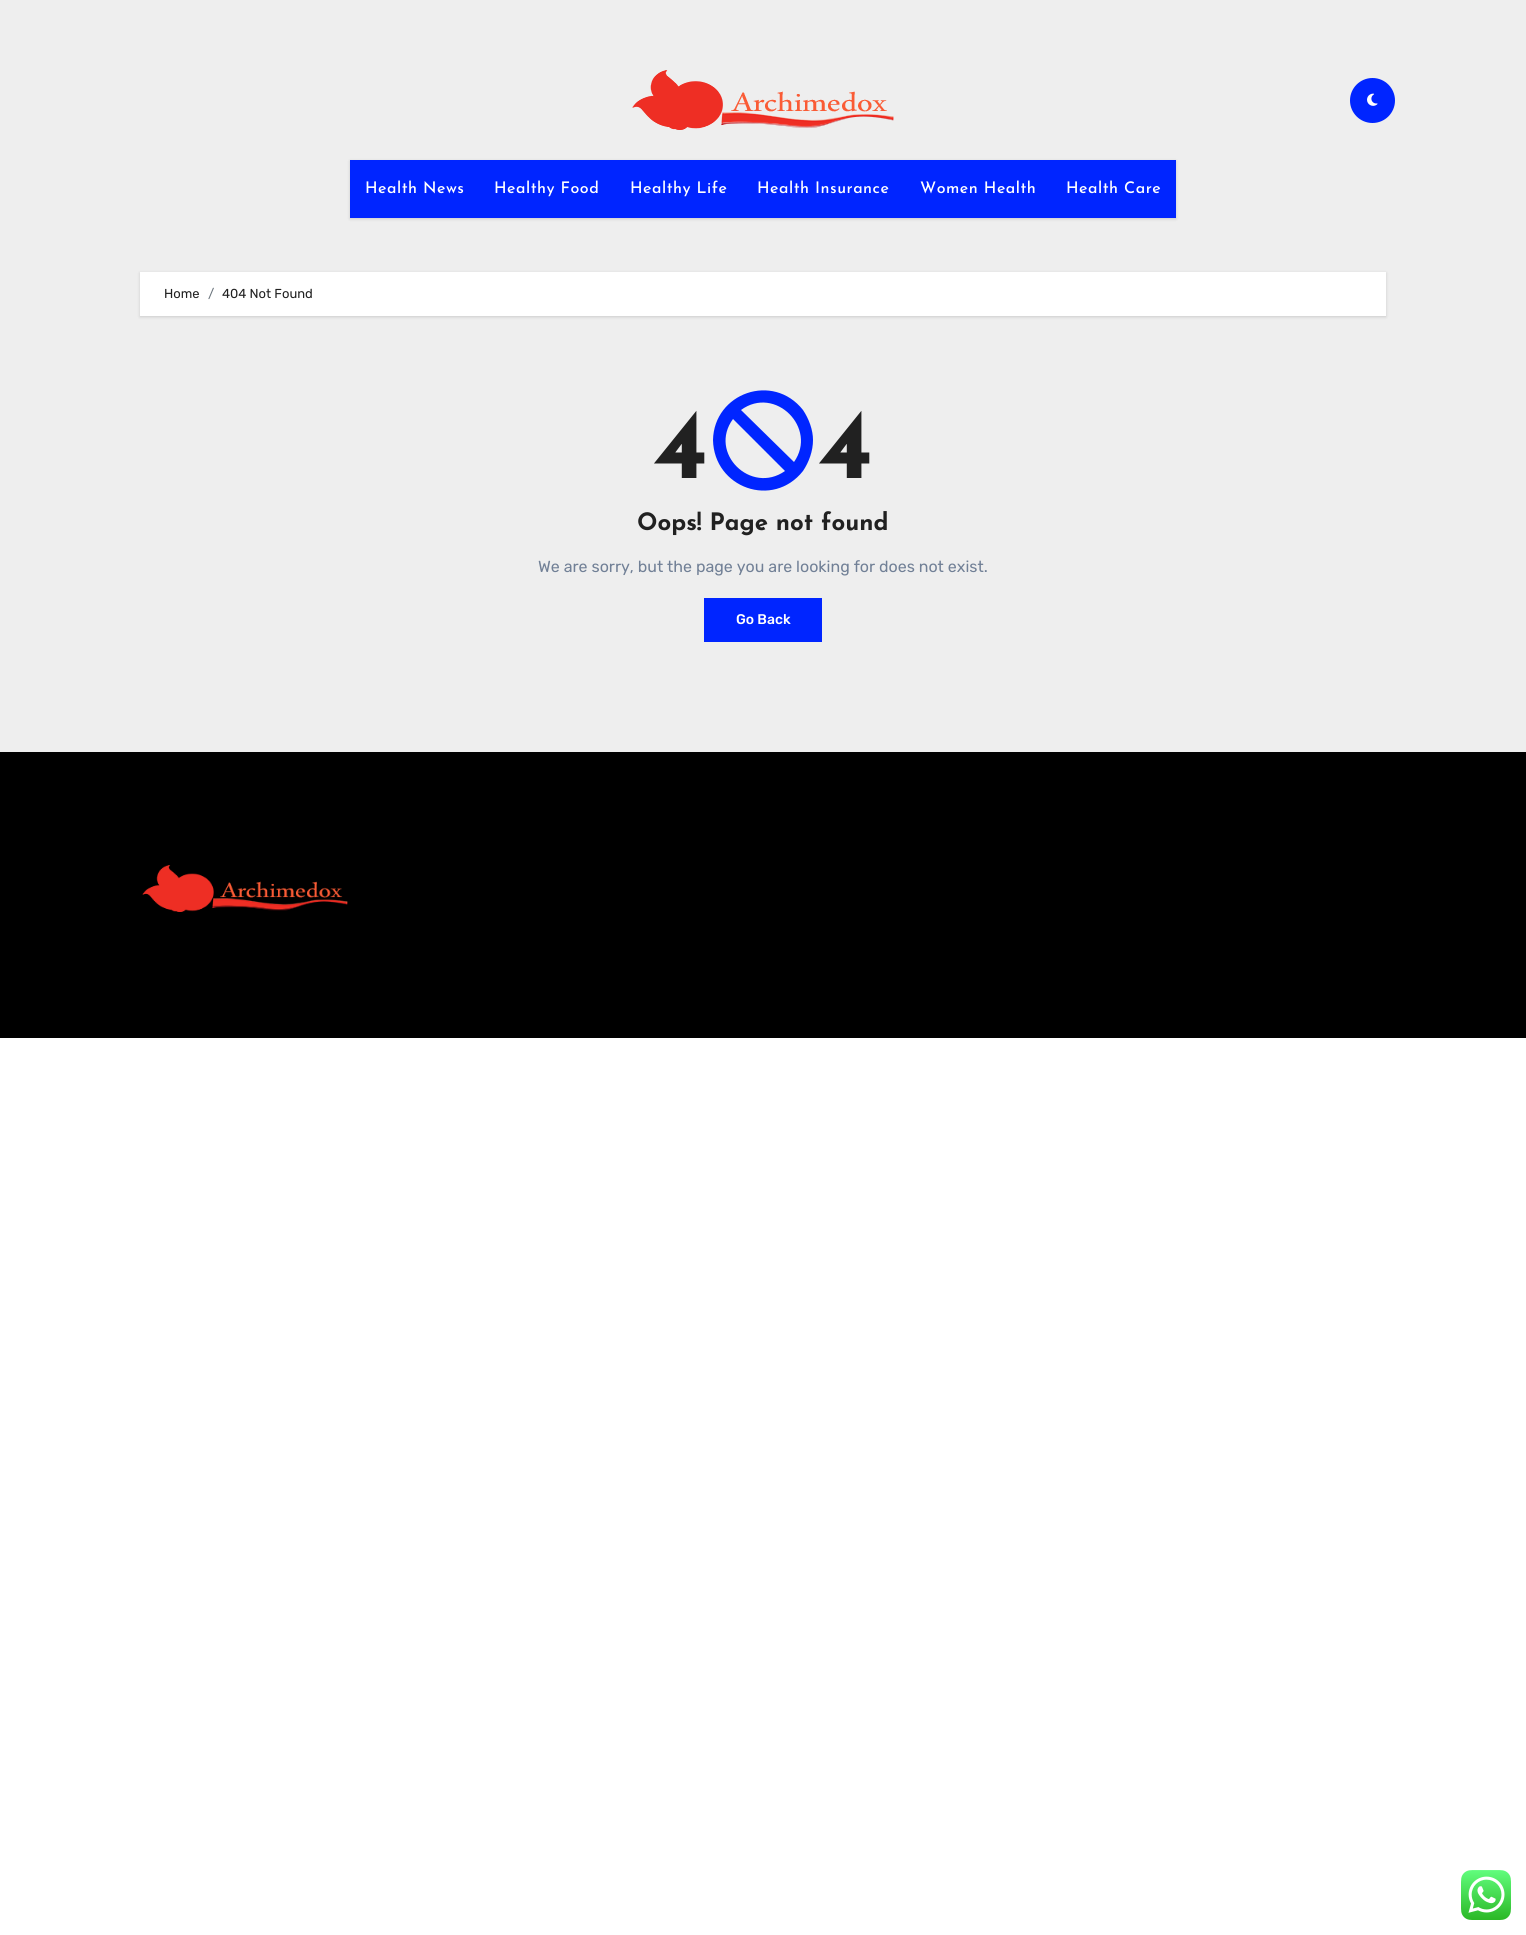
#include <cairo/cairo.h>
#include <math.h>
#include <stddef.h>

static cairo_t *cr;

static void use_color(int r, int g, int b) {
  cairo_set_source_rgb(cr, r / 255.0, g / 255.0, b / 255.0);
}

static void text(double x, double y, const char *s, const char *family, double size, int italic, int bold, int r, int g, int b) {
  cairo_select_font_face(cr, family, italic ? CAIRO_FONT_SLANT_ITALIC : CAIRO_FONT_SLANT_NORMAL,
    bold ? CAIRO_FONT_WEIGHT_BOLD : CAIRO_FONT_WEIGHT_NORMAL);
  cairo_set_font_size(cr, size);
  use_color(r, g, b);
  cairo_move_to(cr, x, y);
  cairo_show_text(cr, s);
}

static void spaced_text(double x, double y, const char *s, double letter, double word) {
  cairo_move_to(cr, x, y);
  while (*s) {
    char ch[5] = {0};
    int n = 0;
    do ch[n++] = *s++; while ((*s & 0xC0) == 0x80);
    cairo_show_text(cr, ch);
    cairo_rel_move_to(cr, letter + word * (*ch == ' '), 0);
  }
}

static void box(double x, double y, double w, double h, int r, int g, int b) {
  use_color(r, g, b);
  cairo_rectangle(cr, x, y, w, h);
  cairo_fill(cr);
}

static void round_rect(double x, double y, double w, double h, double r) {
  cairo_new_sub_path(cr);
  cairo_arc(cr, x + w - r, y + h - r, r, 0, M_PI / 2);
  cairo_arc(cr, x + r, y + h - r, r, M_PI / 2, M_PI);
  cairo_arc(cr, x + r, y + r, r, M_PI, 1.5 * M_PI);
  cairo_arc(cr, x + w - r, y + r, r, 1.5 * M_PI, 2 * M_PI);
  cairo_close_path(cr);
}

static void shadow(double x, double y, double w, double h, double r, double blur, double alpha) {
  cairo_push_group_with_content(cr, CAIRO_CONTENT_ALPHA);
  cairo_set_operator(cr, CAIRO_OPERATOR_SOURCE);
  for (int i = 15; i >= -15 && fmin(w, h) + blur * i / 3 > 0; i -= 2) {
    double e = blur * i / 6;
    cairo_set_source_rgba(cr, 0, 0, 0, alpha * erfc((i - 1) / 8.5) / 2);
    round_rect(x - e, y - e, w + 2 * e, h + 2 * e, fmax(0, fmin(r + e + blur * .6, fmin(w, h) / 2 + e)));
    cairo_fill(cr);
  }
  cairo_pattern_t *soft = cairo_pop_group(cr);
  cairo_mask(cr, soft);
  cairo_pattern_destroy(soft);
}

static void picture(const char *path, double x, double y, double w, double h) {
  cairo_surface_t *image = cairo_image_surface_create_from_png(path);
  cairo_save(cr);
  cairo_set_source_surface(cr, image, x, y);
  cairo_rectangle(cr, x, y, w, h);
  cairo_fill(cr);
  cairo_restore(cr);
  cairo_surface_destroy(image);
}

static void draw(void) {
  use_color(255, 255, 255);
  cairo_paint(cr);
  box(0, 0, 1526, 752, 238, 238, 238);
  picture("img_01.png", 632, 70, 262, 60);
  use_color(0, 37, 255);
  cairo_arc(cr, 1372.5, 100.5, 22.5, 0, 2 * M_PI);
  cairo_fill(cr);
  picture("img_02.png", 1367, 93, 11, 13);
  use_color(0, 0, 0);
  shadow(350, 161, 826, 58, 0, 1.5, 0.15);
  box(350, 160, 826, 58, 0, 37, 255);
  use_color(0, 0, 0);
  shadow(140, 273, 1246, 44, 0, 1.5, 0.15);
  box(140, 272, 1246, 44, 255, 255, 255);
  use_color(0, 37, 255);
  cairo_new_path(cr);
  cairo_move_to(cr, 785, 471);
  cairo_line_to(cr, 733, 419);
  cairo_curve_to(cr, 708, 453, 751, 495, 785, 471);
  cairo_close_path(cr);
  cairo_move_to(cr, 794, 462);
  cairo_curve_to(cr, 818, 428, 775, 385, 741, 410);
  cairo_close_path(cr);
  cairo_move_to(cr, 713, 440);
  cairo_curve_to(cr, 714, 393, 773, 372, 803, 410);
  cairo_curve_to(cr, 809, 419, 813, 430, 813, 440);
  cairo_curve_to(cr, 813, 451, 809, 462, 803, 471);
  cairo_curve_to(cr, 773, 509, 714, 488, 713, 440);
  cairo_close_path(cr);
  cairo_fill(cr);
  box(704, 598, 118, 44, 0, 37, 255);
  box(0, 752, 1526, 286, 0, 0, 0);
  picture("img_03.png", 142, 865, 206, 47);
  picture("img_04.png", 1461, 1870, 50, 50);
  cairo_select_font_face(cr, "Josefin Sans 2 Thin", CAIRO_FONT_SLANT_NORMAL, CAIRO_FONT_WEIGHT_NORMAL);
  cairo_set_font_size(cr, 16);
  use_color(255, 255, 255);
  spaced_text(365, 193, "Health News", 0.5, 0);
  spaced_text(494, 193, "Healthy Food", 0.5, 0);
  spaced_text(630, 193, "Healthy Life", 0.5, 0);
  spaced_text(757, 193, "Health Insurance", 0.5, 0);
  spaced_text(920, 193, "Women Health", 0.5, 0);
  spaced_text(1066, 193, "Health Care", 0.5, 0);
  text(164, 298, "Home", "Rubik Light", 13, 0, 0, 33, 33, 33);
  text(208, 298, "/", "Rubik Light", 13, 0, 0, 108, 117, 125);
  text(222, 298, "404 Not Found", "Rubik Light", 13, 0, 0, 33, 33, 33);
  text(653, 478, "4", "Josefin Sans Thin", 100, 0, 0, 33, 33, 33);
  text(818, 478, "4", "Josefin Sans Thin", 100, 0, 0, 33, 33, 33);
  text(637, 530, "Oops! Page not found", "Josefin Sans Thin", 24, 0, 0, 33, 33, 33);
  text(538, 572, "We are sorry, but the page you are looking for does not exist.", "Rubik Light", 16, 0, 0, 113, 128, 150);
  text(736, 624, "Go Back", "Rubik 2 Light", 14, 0, 0, 255, 255, 255);
}

int main(void) {
  cairo_surface_t *surface = cairo_image_surface_create(CAIRO_FORMAT_RGB24, 1526, 1935);
  cr = cairo_create(surface);
  cairo_font_options_t *options = cairo_font_options_create();
  cairo_font_options_set_hint_metrics(options, CAIRO_HINT_METRICS_OFF);
  cairo_font_options_set_hint_style(options, CAIRO_HINT_STYLE_NONE);
  cairo_set_font_options(cr, options);
  cairo_set_miter_limit(cr, 4);
  draw();
  cairo_surface_write_to_png(surface, "out.png");
  cairo_font_options_destroy(options);
  cairo_destroy(cr);
  cairo_surface_destroy(surface);
  return 0;
}
